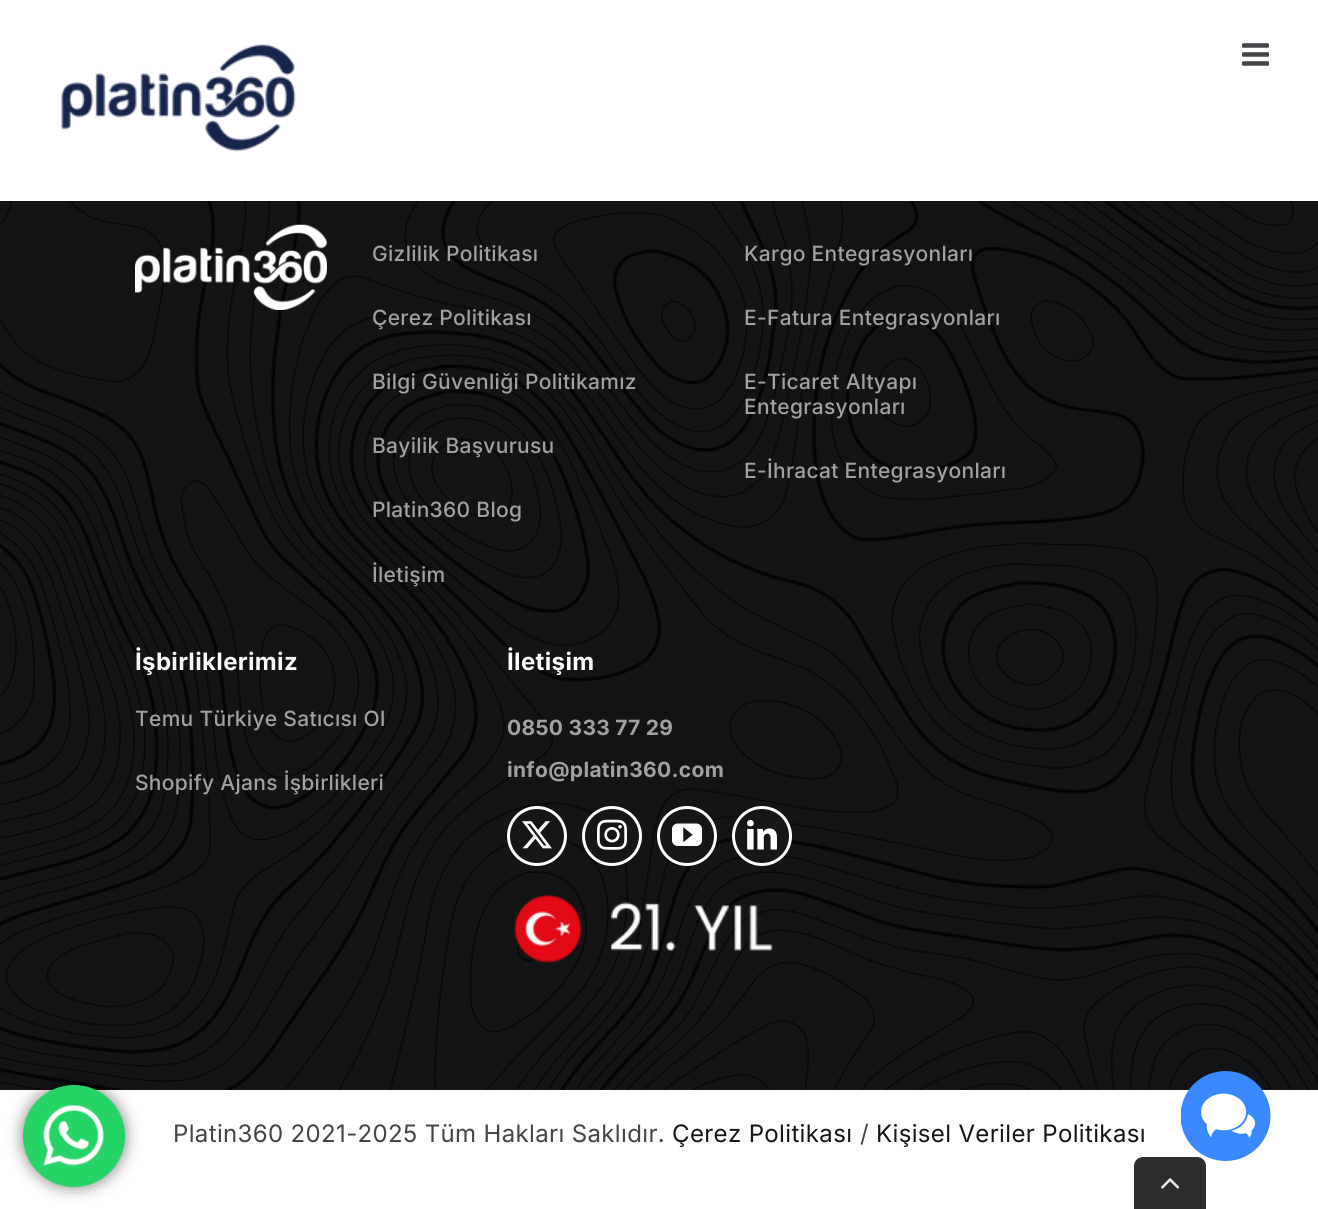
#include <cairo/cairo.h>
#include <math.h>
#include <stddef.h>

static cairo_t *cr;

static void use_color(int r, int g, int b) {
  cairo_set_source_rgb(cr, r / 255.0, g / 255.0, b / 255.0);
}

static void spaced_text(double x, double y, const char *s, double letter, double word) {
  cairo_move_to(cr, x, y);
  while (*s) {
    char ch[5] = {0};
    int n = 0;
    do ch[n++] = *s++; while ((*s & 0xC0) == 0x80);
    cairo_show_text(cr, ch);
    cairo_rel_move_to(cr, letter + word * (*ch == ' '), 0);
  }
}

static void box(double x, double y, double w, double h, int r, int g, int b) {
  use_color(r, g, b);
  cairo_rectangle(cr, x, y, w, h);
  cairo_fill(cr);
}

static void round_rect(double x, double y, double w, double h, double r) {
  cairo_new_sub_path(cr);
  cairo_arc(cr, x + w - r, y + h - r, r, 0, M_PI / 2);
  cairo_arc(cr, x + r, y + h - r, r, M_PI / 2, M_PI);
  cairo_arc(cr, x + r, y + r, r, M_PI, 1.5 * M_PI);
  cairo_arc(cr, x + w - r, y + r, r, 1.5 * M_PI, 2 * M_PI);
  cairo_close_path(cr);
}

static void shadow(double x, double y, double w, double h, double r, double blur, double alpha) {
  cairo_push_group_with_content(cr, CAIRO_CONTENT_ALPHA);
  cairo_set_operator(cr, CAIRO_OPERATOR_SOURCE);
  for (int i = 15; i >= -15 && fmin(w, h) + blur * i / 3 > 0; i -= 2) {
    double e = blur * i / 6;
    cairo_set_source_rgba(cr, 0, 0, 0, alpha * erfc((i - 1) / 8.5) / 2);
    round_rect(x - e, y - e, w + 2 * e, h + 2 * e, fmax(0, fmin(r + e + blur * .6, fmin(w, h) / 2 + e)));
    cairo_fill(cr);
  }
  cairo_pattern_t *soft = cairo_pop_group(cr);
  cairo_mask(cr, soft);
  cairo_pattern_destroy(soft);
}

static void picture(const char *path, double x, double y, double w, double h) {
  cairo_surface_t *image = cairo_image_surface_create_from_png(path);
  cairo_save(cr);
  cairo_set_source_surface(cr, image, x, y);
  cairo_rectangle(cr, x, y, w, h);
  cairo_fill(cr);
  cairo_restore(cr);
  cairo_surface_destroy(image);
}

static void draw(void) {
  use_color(255, 255, 255);
  cairo_paint(cr);
  picture("img_04.png", 0, 201, 1318, 889);
  use_color(0, 0, 0);
  shadow(23, 1085, 102, 102, 51, 8, 0.5);
  use_color(37, 211, 102);
  cairo_arc(cr, 74, 1136, 51, 0, 2 * M_PI);
  cairo_fill(cr);
  picture("img_01.png", 43, 1105, 61, 61);
  use_color(0, 0, 0);
  shadow(0, 2, 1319, 201, 0, 2, 0.12);
  box(0, 0, 1318, 201, 255, 255, 255);
  picture("img_02.png", 61, 44, 235, 108);
  picture("img_03.png", 1242, 43, 27, 23);
  picture("img_05.png", 135, 224, 192, 86);
  use_color(20, 22, 23);
  cairo_arc(cr, 537, 836, 28.5, 0, 2 * M_PI);
  cairo_fill_preserve(cr);
  use_color(255, 255, 255);
  cairo_set_line_width(cr, 3);
  cairo_stroke(cr);
  picture("img_06.png", 522, 821, 30, 28);
  use_color(20, 22, 23);
  cairo_arc(cr, 612, 836, 28.5, 0, 2 * M_PI);
  cairo_fill_preserve(cr);
  use_color(255, 255, 255);
  cairo_stroke(cr);
  picture("img_07.png", 597, 819, 30, 31);
  use_color(20, 22, 23);
  cairo_arc(cr, 687, 836, 28.5, 0, 2 * M_PI);
  cairo_fill_preserve(cr);
  use_color(255, 255, 255);
  cairo_stroke(cr);
  picture("img_08.png", 672, 823, 30, 23);
  use_color(20, 22, 23);
  cairo_arc(cr, 762, 836, 28.5, 0, 2 * M_PI);
  cairo_fill_preserve(cr);
  use_color(255, 255, 255);
  cairo_stroke(cr);
  picture("img_09.png", 747, 820, 30, 30);
  picture("img_10.png", 514, 894, 259, 69);
  use_color(44, 45, 46);
  cairo_new_path(cr);
  cairo_move_to(cr, 1143, 1157);
  cairo_line_to(cr, 1197, 1157);
  cairo_curve_to(cr, 1202, 1157, 1206, 1161, 1206, 1166);
  cairo_line_to(cr, 1206, 1209);
  cairo_line_to(cr, 1134, 1209);
  cairo_line_to(cr, 1134, 1166);
  cairo_curve_to(cr, 1134, 1161, 1138, 1157, 1143, 1157);
  cairo_close_path(cr);
  cairo_fill(cr);
  picture("img_11.png", 1181, 1071, 90, 90);
  picture("img_12.png", 1161, 1178, 19, 11);
  cairo_select_font_face(cr, "Inter Medium", CAIRO_FONT_SLANT_NORMAL, CAIRO_FONT_WEIGHT_NORMAL);
  cairo_set_font_size(cr, 21);
  use_color(160, 161, 161);
  spaced_text(372, 261, "Gizlilik Politikası", 0.3, 0);
  spaced_text(372, 325, "Çerez Politikası", 0.3, 0);
  spaced_text(372, 389, "Bilgi Güvenliği Politikamız", 0.3, 0);
  spaced_text(372, 453, "Bayilik Başvurusu", 0.3, 0);
  spaced_text(372, 517, "Platin360 Blog", 0.3, 0);
  spaced_text(372, 582, "İletişim", 0.3, 0);
  spaced_text(744, 261, "Kargo Entegrasyonları", 0.3, 0);
  spaced_text(744, 325, "E-Fatura Entegrasyonları", 0.3, 0);
  spaced_text(744, 389, "E-Ticaret Altyapı", 0.3, 0);
  spaced_text(744, 414, "Entegrasyonları", 0.3, 0);
  spaced_text(744, 478, "E-İhracat Entegrasyonları", 0.3, 0);
  cairo_select_font_face(cr, "Inter", CAIRO_FONT_SLANT_NORMAL, CAIRO_FONT_WEIGHT_BOLD);
  cairo_set_font_size(cr, 24);
  use_color(249, 249, 251);
  spaced_text(135, 670, "İşbirliklerimiz", 0.35, 0);
  cairo_select_font_face(cr, "Inter Medium", CAIRO_FONT_SLANT_NORMAL, CAIRO_FONT_WEIGHT_NORMAL);
  cairo_set_font_size(cr, 21);
  use_color(160, 161, 161);
  spaced_text(135, 726, "Temu Türkiye Satıcısı Ol", 0.3, 0);
  spaced_text(135, 790, "Shopify Ajans İşbirlikleri", 0.3, 0);
  cairo_select_font_face(cr, "Inter", CAIRO_FONT_SLANT_NORMAL, CAIRO_FONT_WEIGHT_BOLD);
  cairo_set_font_size(cr, 24);
  use_color(255, 255, 255);
  spaced_text(507, 670, "İletişim", 0.35, 0);
  cairo_set_font_size(cr, 21);
  use_color(160, 161, 161);
  spaced_text(507, 735, "0850 333 77 29", 0.3, 0);
  spaced_text(507, 777, "info@platin360.com", 0.3, 0);
  cairo_select_font_face(cr, "Inter", CAIRO_FONT_SLANT_NORMAL, CAIRO_FONT_WEIGHT_NORMAL);
  cairo_set_font_size(cr, 24);
  use_color(67, 69, 73);
  spaced_text(173, 1142, "Platin360 2021-2025 Tüm Hakları Saklıdır.", 0.35, 0);
  use_color(20, 22, 23);
  spaced_text(672, 1142, "Çerez Politikası", 0.35, 0);
  use_color(67, 69, 73);
  spaced_text(860, 1142, "/", 0.35, 0);
  use_color(20, 22, 23);
  spaced_text(876, 1142, "Kişisel Veriler Politikası", 0.35, 0);
}

int main(void) {
  cairo_surface_t *surface = cairo_image_surface_create(CAIRO_FORMAT_RGB24, 1318, 1209);
  cr = cairo_create(surface);
  cairo_font_options_t *options = cairo_font_options_create();
  cairo_font_options_set_hint_metrics(options, CAIRO_HINT_METRICS_OFF);
  cairo_font_options_set_hint_style(options, CAIRO_HINT_STYLE_NONE);
  cairo_set_font_options(cr, options);
  cairo_set_miter_limit(cr, 4);
  draw();
  cairo_surface_write_to_png(surface, "out.png");
  cairo_font_options_destroy(options);
  cairo_destroy(cr);
  cairo_surface_destroy(surface);
  return 0;
}
